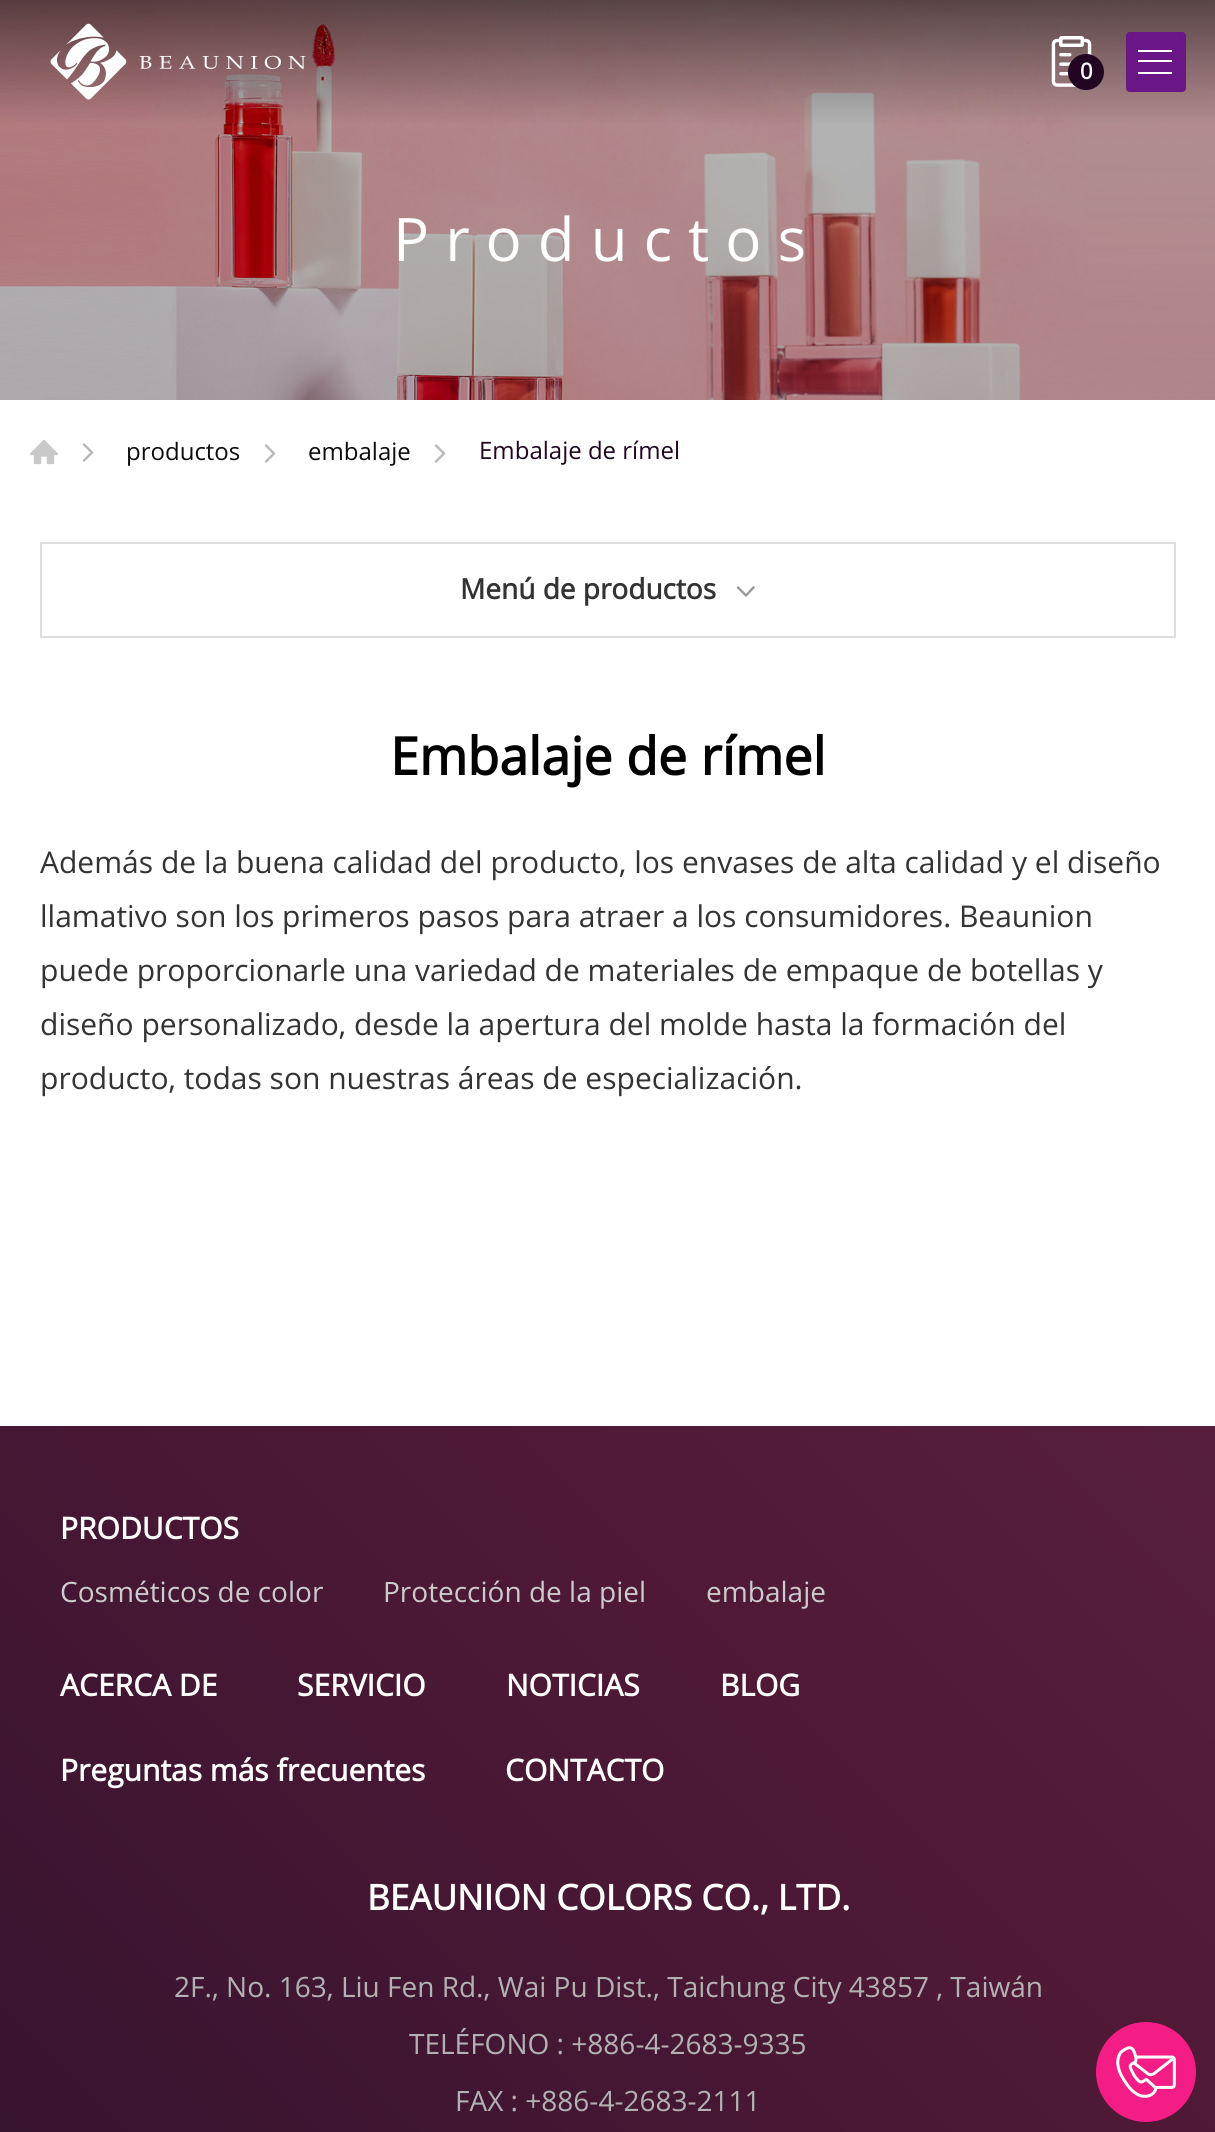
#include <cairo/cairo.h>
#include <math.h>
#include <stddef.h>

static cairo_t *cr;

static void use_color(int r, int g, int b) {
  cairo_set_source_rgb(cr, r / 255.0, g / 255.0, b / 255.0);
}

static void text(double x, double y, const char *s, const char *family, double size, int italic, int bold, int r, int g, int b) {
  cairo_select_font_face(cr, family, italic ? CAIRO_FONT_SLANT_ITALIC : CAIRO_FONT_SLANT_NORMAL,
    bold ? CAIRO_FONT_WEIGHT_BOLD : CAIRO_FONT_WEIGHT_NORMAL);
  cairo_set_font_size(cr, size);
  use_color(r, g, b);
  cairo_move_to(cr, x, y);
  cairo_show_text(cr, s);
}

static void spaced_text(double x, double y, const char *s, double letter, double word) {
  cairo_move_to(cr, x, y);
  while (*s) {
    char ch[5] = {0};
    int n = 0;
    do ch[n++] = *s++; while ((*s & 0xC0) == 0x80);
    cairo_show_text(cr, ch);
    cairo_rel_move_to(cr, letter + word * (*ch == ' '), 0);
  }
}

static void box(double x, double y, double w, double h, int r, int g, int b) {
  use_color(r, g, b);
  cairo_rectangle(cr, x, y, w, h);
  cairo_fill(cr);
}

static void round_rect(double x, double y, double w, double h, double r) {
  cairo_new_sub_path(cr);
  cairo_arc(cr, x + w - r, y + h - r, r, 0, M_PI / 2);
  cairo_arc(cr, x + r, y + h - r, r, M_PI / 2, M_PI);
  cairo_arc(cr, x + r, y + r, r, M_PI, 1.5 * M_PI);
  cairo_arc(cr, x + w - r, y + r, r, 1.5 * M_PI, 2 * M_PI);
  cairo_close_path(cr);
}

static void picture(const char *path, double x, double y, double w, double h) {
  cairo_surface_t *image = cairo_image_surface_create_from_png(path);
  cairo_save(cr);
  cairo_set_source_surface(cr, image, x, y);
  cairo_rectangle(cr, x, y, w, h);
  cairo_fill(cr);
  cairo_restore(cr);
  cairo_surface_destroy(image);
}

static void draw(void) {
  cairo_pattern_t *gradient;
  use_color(255, 255, 255);
  cairo_paint(cr);
  picture("img_03.png", 0, 0, 1215, 400);
  picture("img_01.png", 50, 23, 256, 77);
  picture("img_02.png", 1051, 36, 41, 51);
  use_color(33, 5, 33);
  cairo_arc(cr, 1086, 72, 18, 0, 2 * M_PI);
  cairo_fill(cr);
  use_color(107, 22, 134);
  round_rect(1126, 32, 60, 60, 4);
  cairo_fill(cr);
  box(1138, 50, 34, 2, 255, 255, 255);
  box(1138, 60, 34, 2, 255, 255, 255);
  box(1138, 72, 34, 2, 255, 255, 255);
  picture("img_04.png", 30, 440, 28, 25);
  cairo_new_path(cr);
  cairo_move_to(cr, 84, 460.5);
  cairo_line_to(cr, 92, 452.5);
  cairo_line_to(cr, 84, 444.5);
  use_color(184, 184, 184);
  cairo_set_line_width(cr, 2.4);
  cairo_set_line_cap(cr, CAIRO_LINE_CAP_ROUND);
  cairo_set_line_join(cr, CAIRO_LINE_JOIN_ROUND);
  cairo_stroke(cr);
  cairo_new_path(cr);
  cairo_move_to(cr, 266, 461.5);
  cairo_line_to(cr, 274, 453.5);
  cairo_line_to(cr, 266, 445.5);
  cairo_stroke(cr);
  cairo_new_path(cr);
  cairo_move_to(cr, 436, 461.5);
  cairo_line_to(cr, 444, 453.5);
  cairo_line_to(cr, 436, 445.5);
  cairo_stroke(cr);
  cairo_rectangle(cr, 41, 543, 1134, 94);
  use_color(221, 221, 221);
  cairo_set_line_width(cr, 2);
  cairo_set_line_cap(cr, CAIRO_LINE_CAP_BUTT);
  cairo_set_line_join(cr, CAIRO_LINE_JOIN_MITER);
  cairo_stroke(cr);
  cairo_new_path(cr);
  cairo_move_to(cr, 738, 587.5);
  cairo_line_to(cr, 746, 595.5);
  cairo_line_to(cr, 753.5, 587.5);
  use_color(153, 153, 153);
  cairo_set_line_width(cr, 2.4);
  cairo_set_line_cap(cr, CAIRO_LINE_CAP_ROUND);
  cairo_set_line_join(cr, CAIRO_LINE_JOIN_ROUND);
  cairo_stroke(cr);
  gradient = cairo_pattern_create_linear(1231, 1441, -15, 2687);
  cairo_pattern_add_color_stop_rgba(gradient, 0, 0.341, 0.122, 0.239, 1);
  cairo_pattern_add_color_stop_rgba(gradient, 0.3, 0.31, 0.098, 0.212, 1);
  cairo_pattern_add_color_stop_rgba(gradient, 1, 0.169, 0.067, 0.176, 1);
  cairo_set_source(cr, gradient);
  cairo_pattern_destroy(gradient);
  cairo_rectangle(cr, 0, 1426, 1215, 706);
  cairo_fill(cr);
  use_color(244, 29, 133);
  cairo_arc(cr, 1146, 2072, 50, 0, 2 * M_PI);
  cairo_fill(cr);
  picture("img_05.png", 1116, 2046, 60, 52);
  text(1080, 79, "0", "Open Sans", 22, 0, 1, 255, 255, 255);
  cairo_select_font_face(cr, "Open Sans", CAIRO_FONT_SLANT_NORMAL, CAIRO_FONT_WEIGHT_NORMAL);
  cairo_set_font_size(cr, 60);
  spaced_text(393, 261, "Productos", 16, 0);
  text(126, 460, "productos", "Open Sans", 24, 0, 0, 13, 13, 13);
  text(308, 460, "embalaje", "Open Sans", 24, 0, 0, 13, 13, 13);
  text(479, 459, "Embalaje de rímel", "Open Sans", 24, 0, 0, 33, 5, 33);
  text(460, 599, "Menú de productos", "Open Sans", 28, 0, 1, 51, 51, 51);
  text(390, 775, "Embalaje de rímel", "Open Sans", 52, 0, 1, 0, 0, 0);
  text(40, 873, "Además de la buena calidad del producto, los envases de alta calidad y el diseño", "Open Sans", 30, 0, 0, 51, 51, 51);
  text(40, 927, "llamativo son los primeros pasos para atraer a los consumidores. Beaunion", "Open Sans", 30, 0, 0, 51, 51, 51);
  text(40, 981, "puede proporcionarle una variedad de materiales de empaque de botellas y", "Open Sans", 30, 0, 0, 51, 51, 51);
  text(40, 1035, "diseño personalizado, desde la apertura del molde hasta la formación del", "Open Sans", 30, 0, 0, 51, 51, 51);
  text(40, 1089, "producto, todas son nuestras áreas de especialización.", "Open Sans", 30, 0, 0, 51, 51, 51);
  text(60, 1539, "PRODUCTOS", "Open Sans", 30, 0, 1, 255, 255, 255);
  text(60, 1602, "Cosméticos de color", "Open Sans", 28, 0, 0, 204, 204, 204);
  text(383, 1602, "Protección de la piel", "Open Sans", 28, 0, 0, 204, 204, 204);
  text(706, 1602, "embalaje", "Open Sans", 28, 0, 0, 204, 204, 204);
  text(60, 1696, "ACERCA DE", "Open Sans", 30, 0, 1, 255, 255, 255);
  text(297, 1696, "SERVICIO", "Open Sans", 30, 0, 1, 255, 255, 255);
  text(506, 1696, "NOTICIAS", "Open Sans", 30, 0, 1, 255, 255, 255);
  text(720, 1696, "BLOG", "Open Sans", 30, 0, 1, 255, 255, 255);
  text(60, 1781, "Preguntas más frecuentes", "Open Sans", 30, 0, 1, 255, 255, 255);
  text(505, 1781, "CONTACTO", "Open Sans", 30, 0, 1, 255, 255, 255);
  text(367, 1910, "BEAUNION COLORS CO., LTD.", "Open Sans", 35.1, 0, 1, 255, 255, 255);
  text(174, 1997, "2F., No. 163, Liu Fen Rd., Wai Pu Dist., Taichung City 43857 , Taiwán", "Open Sans", 28, 0, 0, 178, 178, 178);
  text(409, 2054, "TELÉFONO : +886-4-2683-9335", "Open Sans", 28, 0, 0, 178, 178, 178);
  text(455, 2111, "FAX : +886-4-2683-2111", "Open Sans", 28, 0, 0, 178, 178, 178);
}

int main(void) {
  cairo_surface_t *surface = cairo_image_surface_create(CAIRO_FORMAT_RGB24, 1215, 2132);
  cr = cairo_create(surface);
  cairo_font_options_t *options = cairo_font_options_create();
  cairo_font_options_set_hint_metrics(options, CAIRO_HINT_METRICS_OFF);
  cairo_font_options_set_hint_style(options, CAIRO_HINT_STYLE_NONE);
  cairo_set_font_options(cr, options);
  cairo_set_miter_limit(cr, 4);
  draw();
  cairo_surface_write_to_png(surface, "out.png");
  cairo_font_options_destroy(options);
  cairo_destroy(cr);
  cairo_surface_destroy(surface);
  return 0;
}
